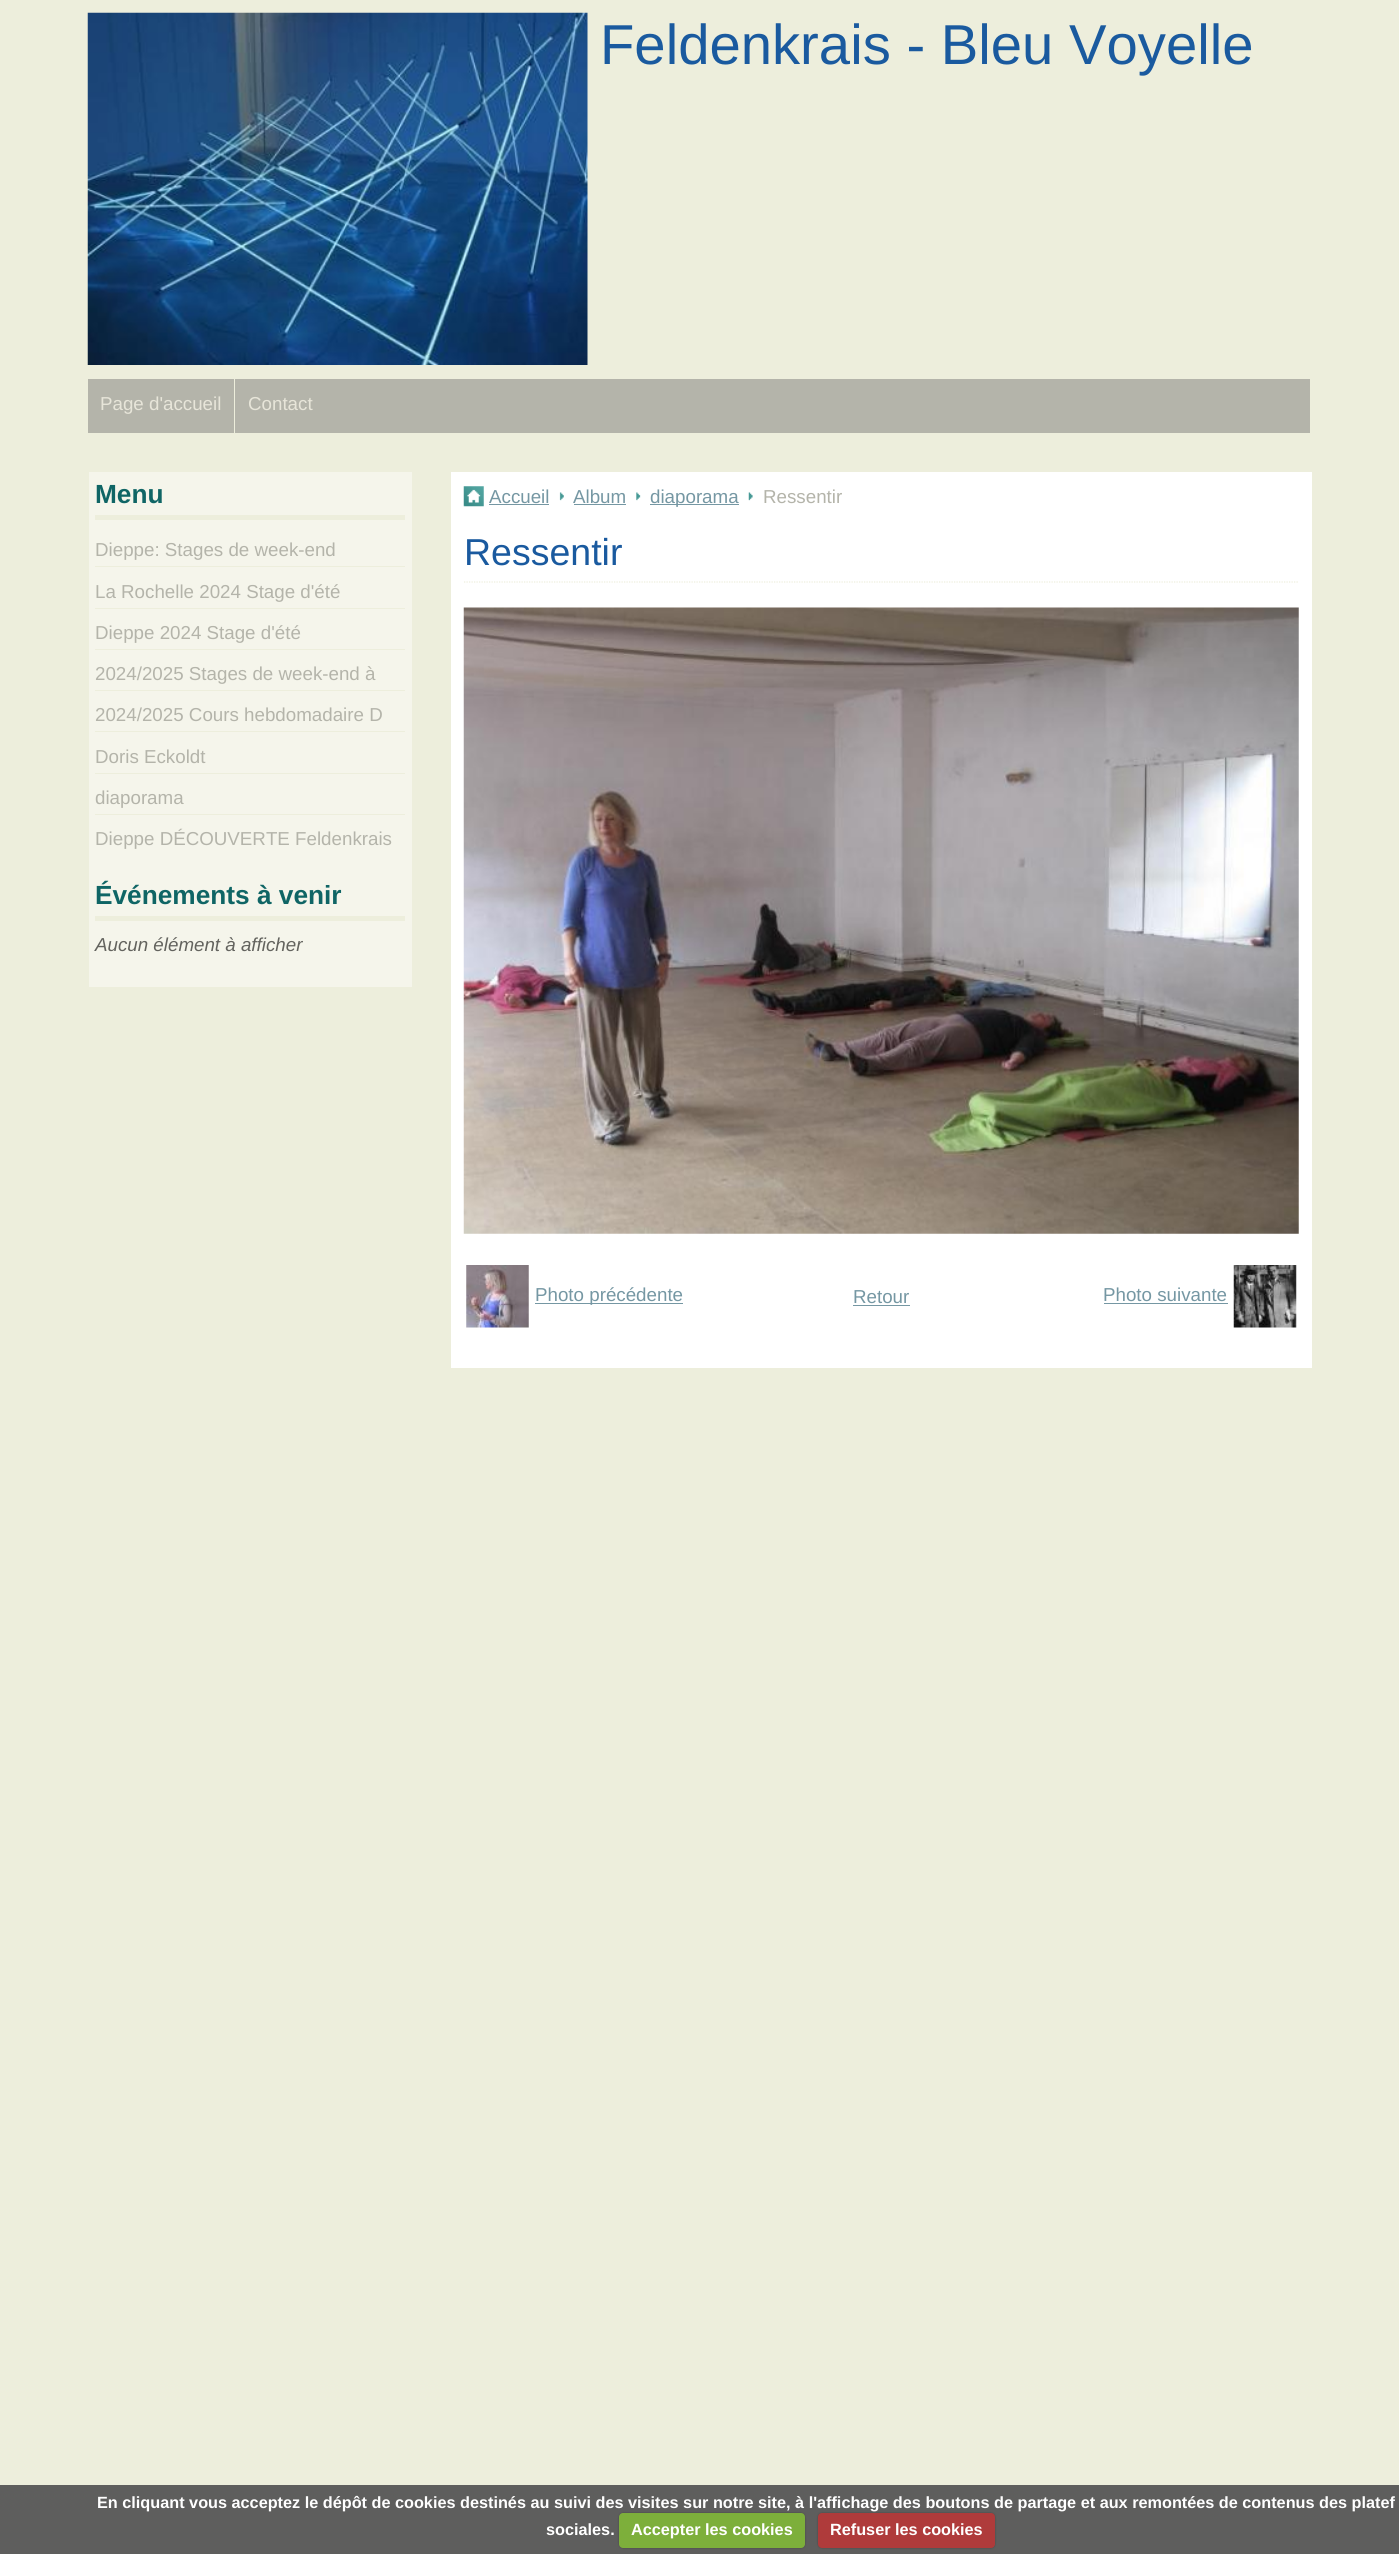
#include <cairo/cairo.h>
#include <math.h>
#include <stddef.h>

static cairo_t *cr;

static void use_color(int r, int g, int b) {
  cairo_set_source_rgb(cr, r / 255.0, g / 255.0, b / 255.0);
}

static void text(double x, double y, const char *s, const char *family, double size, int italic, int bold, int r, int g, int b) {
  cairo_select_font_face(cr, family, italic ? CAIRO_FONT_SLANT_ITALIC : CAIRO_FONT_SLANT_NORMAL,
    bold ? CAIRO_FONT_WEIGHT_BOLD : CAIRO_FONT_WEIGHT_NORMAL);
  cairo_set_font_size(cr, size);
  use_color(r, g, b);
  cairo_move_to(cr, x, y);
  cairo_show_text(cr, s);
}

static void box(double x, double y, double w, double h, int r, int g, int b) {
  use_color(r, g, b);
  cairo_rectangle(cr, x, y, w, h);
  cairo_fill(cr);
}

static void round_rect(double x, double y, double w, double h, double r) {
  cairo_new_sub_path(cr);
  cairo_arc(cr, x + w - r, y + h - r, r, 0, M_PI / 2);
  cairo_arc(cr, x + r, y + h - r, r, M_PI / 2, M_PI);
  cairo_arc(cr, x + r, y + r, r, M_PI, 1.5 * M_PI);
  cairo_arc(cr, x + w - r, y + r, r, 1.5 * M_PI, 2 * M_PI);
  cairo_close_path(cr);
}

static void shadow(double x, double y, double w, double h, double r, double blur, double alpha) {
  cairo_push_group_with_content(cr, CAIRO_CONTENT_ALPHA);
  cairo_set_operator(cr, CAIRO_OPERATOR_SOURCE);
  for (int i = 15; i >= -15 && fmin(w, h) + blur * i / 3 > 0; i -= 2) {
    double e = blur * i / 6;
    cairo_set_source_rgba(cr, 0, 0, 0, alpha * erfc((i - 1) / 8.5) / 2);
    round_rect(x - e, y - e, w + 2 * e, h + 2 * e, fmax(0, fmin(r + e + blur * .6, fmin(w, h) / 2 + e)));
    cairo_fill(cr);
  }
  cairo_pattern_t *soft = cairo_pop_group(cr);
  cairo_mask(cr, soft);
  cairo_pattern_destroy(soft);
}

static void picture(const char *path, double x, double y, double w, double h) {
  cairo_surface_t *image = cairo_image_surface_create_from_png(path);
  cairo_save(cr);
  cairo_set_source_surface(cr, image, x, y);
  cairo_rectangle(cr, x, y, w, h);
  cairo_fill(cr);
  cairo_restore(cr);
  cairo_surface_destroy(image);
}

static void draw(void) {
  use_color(237, 238, 220);
  cairo_paint(cr);
  picture("img_01.png", 87, 12, 501, 353);
  box(88, 379, 1222, 54, 180, 180, 170);
  box(234, 379, 1, 54, 237, 238, 220);
  box(89, 472, 323, 515, 245, 245, 235);
  box(95, 515, 310, 5, 237, 238, 220);
  box(95, 566, 310, 1, 237, 238, 220);
  box(95, 608, 310, 1, 237, 238, 220);
  box(95, 649, 310, 1, 237, 238, 220);
  box(95, 690, 310, 1, 237, 238, 220);
  box(95, 731, 310, 1, 237, 238, 220);
  box(95, 773, 310, 1, 237, 238, 220);
  box(95, 814, 310, 1, 237, 238, 220);
  box(95, 916, 310, 5, 237, 238, 220);
  box(451, 472, 861, 896, 255, 255, 255);
  picture("img_02.png", 463, 486, 21, 21);
  box(489, 504, 60, 1, 117, 151, 163);
  picture("img_03.png", 559, 492, 5, 9);
  box(574, 504, 52, 1, 117, 151, 163);
  picture("img_04.png", 636, 492, 5, 9);
  box(650, 504, 89, 1, 117, 151, 163);
  picture("img_05.png", 748, 492, 5, 9);
  cairo_new_path(cr);
  cairo_move_to(cr, 464, 582);
  cairo_line_to(cr, 1299, 582);
  use_color(237, 238, 220);
  cairo_set_line_width(cr, 1.2);
  cairo_set_dash(cr, (double[]){1.25, 1.25}, 2, 0);
  cairo_stroke(cr);
  picture("img_06.png", 463, 607, 836, 627);
  picture("img_07.png", 466, 1265, 63, 63);
  box(535, 1303, 148, 1, 117, 151, 163);
  box(853, 1305, 57, 1, 117, 151, 163);
  box(1104, 1303, 124, 1, 117, 151, 163);
  picture("img_08.png", 1233, 1265, 64, 63);
  box(0, 2485, 1399, 69, 94, 94, 93);
  use_color(0, 0, 0);
  shadow(619, 2513, 186, 35, 4, 1, 0.25);
  use_color(125, 175, 59);
  round_rect(619, 2513, 186, 35, 4);
  cairo_fill(cr);
  use_color(0, 0, 0);
  shadow(818, 2513, 177, 35, 4, 1, 0.25);
  use_color(175, 59, 59);
  round_rect(818, 2513, 177, 35, 4);
  cairo_fill(cr);
  text(600, 64, "Feldenkrais - Bleu Voyelle", "Liberation Sans", 56.25, 0, 0, 26, 90, 159);
  text(100, 410, "Page d'accueil", "Liberation Sans", 18.75, 0, 0, 231, 229, 217);
  text(248, 410, "Contact", "Liberation Sans", 18.75, 0, 0, 231, 229, 217);
  text(95, 503, "Menu", "Liberation Sans", 26.25, 0, 1, 15, 101, 101);
  text(95, 556, "Dieppe: Stages de week-end", "Liberation Sans", 18.75, 0, 0, 180, 180, 170);
  text(95, 598, "La Rochelle 2024 Stage d'été", "Liberation Sans", 18.75, 0, 0, 180, 180, 170);
  text(95, 639, "Dieppe 2024 Stage d'été", "Liberation Sans", 18.75, 0, 0, 180, 180, 170);
  text(95, 680, "2024/2025 Stages de week-end à", "Liberation Sans", 18.75, 0, 0, 180, 180, 170);
  text(95, 721, "2024/2025 Cours hebdomadaire D", "Liberation Sans", 18.75, 0, 0, 180, 180, 170);
  text(95, 763, "Doris Eckoldt", "Liberation Sans", 18.75, 0, 0, 180, 180, 170);
  text(95, 804, "diaporama", "Liberation Sans", 18.75, 0, 0, 180, 180, 170);
  text(95, 845, "Dieppe DÉCOUVERTE Feldenkrais", "Liberation Sans", 18.75, 0, 0, 180, 180, 170);
  text(95, 904, "Événements à venir", "Liberation Sans", 26.25, 0, 1, 15, 101, 101);
  text(95, 951, "Aucun élément à afficher", "Liberation Sans", 18.75, 1, 0, 99, 99, 94);
  text(489, 503, "Accueil", "Liberation Sans", 18.75, 0, 0, 117, 151, 163);
  text(573, 503, "Album", "Liberation Sans", 18.75, 0, 0, 117, 151, 163);
  text(650, 503, "diaporama", "Liberation Sans", 18.75, 0, 0, 117, 151, 163);
  text(763, 503, "Ressentir", "Liberation Sans", 18.75, 0, 0, 180, 180, 170);
  text(464, 565, "Ressentir", "Liberation Sans", 37.5, 0, 0, 26, 90, 159);
  text(535, 1301, "Photo précédente", "Liberation Sans", 18.75, 0, 0, 117, 151, 163);
  text(853, 1303, "Retour", "Liberation Sans", 18.75, 0, 0, 117, 151, 163);
  text(1103, 1301, "Photo suivante", "Liberation Sans", 18.75, 0, 0, 117, 151, 163);
  text(97, 2508, "En cliquant vous acceptez le dépôt de cookies destinés au suivi des visites sur notre site, à l'affichage des boutons de partage et aux remontées de contenus des platef", "Liberation Sans", 16.25, 0, 1, 255, 255, 255);
  text(546, 2535, "sociales.", "Liberation Sans", 16.25, 0, 1, 255, 255, 255);
  text(631, 2535, "Accepter les cookies", "Liberation Sans", 16.25, 0, 1, 255, 255, 255);
  text(830, 2535, "Refuser les cookies", "Liberation Sans", 16.25, 0, 1, 255, 255, 255);
}

int main(void) {
  cairo_surface_t *surface = cairo_image_surface_create(CAIRO_FORMAT_RGB24, 1399, 2554);
  cr = cairo_create(surface);
  cairo_font_options_t *options = cairo_font_options_create();
  cairo_font_options_set_hint_metrics(options, CAIRO_HINT_METRICS_OFF);
  cairo_font_options_set_hint_style(options, CAIRO_HINT_STYLE_NONE);
  cairo_set_font_options(cr, options);
  cairo_set_miter_limit(cr, 4);
  draw();
  cairo_surface_write_to_png(surface, "out.png");
  cairo_font_options_destroy(options);
  cairo_destroy(cr);
  cairo_surface_destroy(surface);
  return 0;
}
